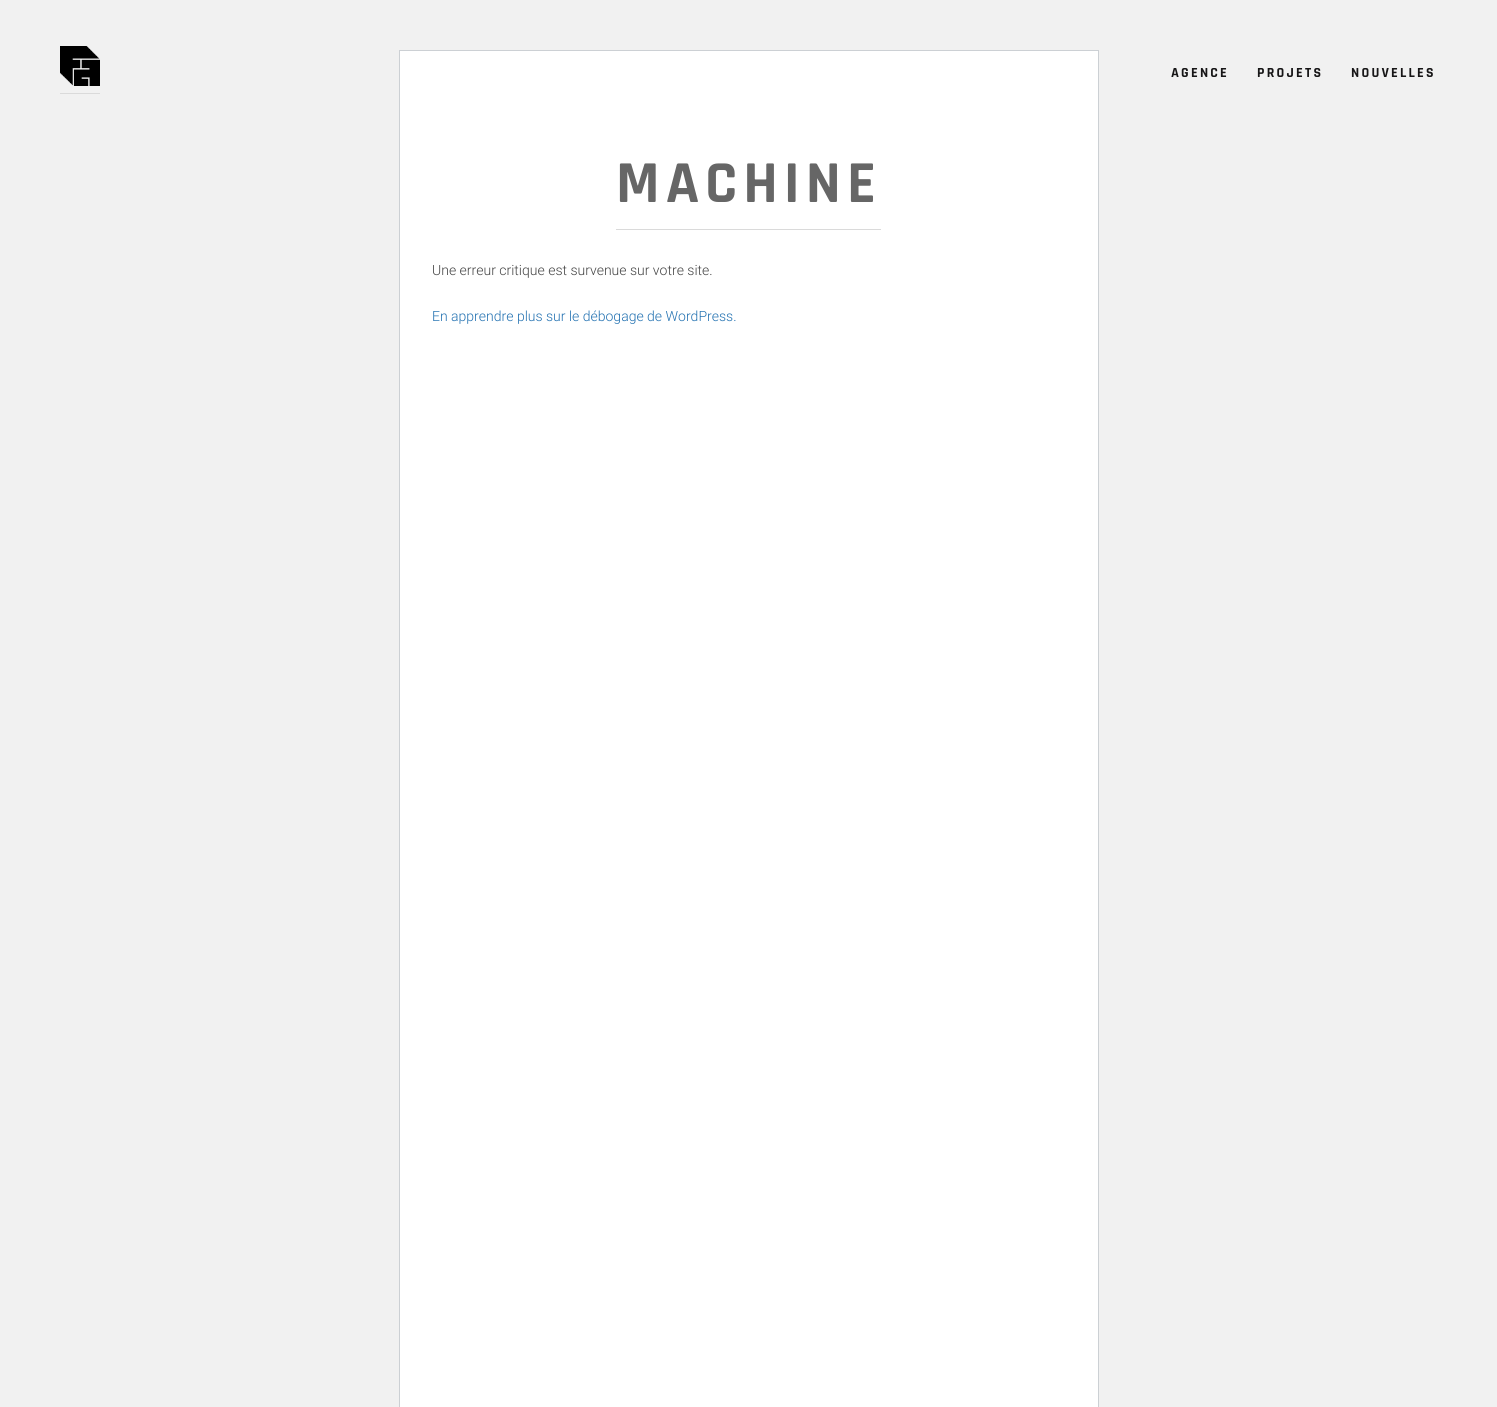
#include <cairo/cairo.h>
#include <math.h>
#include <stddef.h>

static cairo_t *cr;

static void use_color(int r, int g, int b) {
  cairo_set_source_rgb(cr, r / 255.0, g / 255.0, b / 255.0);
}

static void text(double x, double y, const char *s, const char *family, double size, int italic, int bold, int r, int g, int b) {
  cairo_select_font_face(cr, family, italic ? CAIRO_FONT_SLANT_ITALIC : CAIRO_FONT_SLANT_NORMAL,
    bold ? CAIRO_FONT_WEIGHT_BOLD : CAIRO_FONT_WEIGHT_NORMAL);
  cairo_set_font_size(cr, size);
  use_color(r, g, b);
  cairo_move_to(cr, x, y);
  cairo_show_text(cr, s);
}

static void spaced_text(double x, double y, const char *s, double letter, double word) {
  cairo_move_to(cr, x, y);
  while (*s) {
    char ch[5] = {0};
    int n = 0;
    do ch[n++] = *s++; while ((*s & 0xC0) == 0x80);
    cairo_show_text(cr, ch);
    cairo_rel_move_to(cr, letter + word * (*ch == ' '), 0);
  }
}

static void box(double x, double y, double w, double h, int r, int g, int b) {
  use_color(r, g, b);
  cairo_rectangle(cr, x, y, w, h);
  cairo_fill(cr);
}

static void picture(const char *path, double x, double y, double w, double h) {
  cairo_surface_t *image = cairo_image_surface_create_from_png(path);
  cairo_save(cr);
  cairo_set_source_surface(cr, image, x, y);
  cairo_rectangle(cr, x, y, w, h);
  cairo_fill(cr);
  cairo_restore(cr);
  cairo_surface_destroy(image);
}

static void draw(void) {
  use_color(241, 241, 241);
  cairo_paint(cr);
  use_color(255, 255, 255);
  cairo_rectangle(cr, 399.5, 50.5, 699, 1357);
  cairo_fill_preserve(cr);
  use_color(204, 208, 212);
  cairo_set_line_width(cr, 1);
  cairo_stroke(cr);
  box(60, 93, 40, 1, 218, 218, 218);
  picture("img_01.png", 60, 46, 40, 40);
  box(616, 229, 265, 1, 218, 218, 218);
  cairo_select_font_face(cr, "Rajdhani", CAIRO_FONT_SLANT_NORMAL, CAIRO_FONT_WEIGHT_BOLD);
  cairo_set_font_size(cr, 14);
  use_color(23, 22, 23);
  spaced_text(1171, 77, "AGENCE", 2.25, 0);
  spaced_text(1257, 77, "PROJETS", 2.25, 0);
  spaced_text(1351, 77, "NOUVELLES", 2.25, 0);
  cairo_set_font_size(cr, 60);
  use_color(102, 102, 102);
  spaced_text(616, 202, "MACHINE", 6, 0);
  text(432, 275, "Une erreur critique est survenue sur votre site.", "Roboto Light", 14, 0, 0, 68, 68, 68);
  text(432, 321, "En apprendre plus sur le débogage de WordPress.", "Roboto Light", 14, 0, 0, 34, 113, 177);
}

int main(void) {
  cairo_surface_t *surface = cairo_image_surface_create(CAIRO_FORMAT_RGB24, 1497, 1407);
  cr = cairo_create(surface);
  cairo_font_options_t *options = cairo_font_options_create();
  cairo_font_options_set_hint_metrics(options, CAIRO_HINT_METRICS_OFF);
  cairo_font_options_set_hint_style(options, CAIRO_HINT_STYLE_NONE);
  cairo_set_font_options(cr, options);
  cairo_set_miter_limit(cr, 4);
  draw();
  cairo_surface_write_to_png(surface, "out.png");
  cairo_font_options_destroy(options);
  cairo_destroy(cr);
  cairo_surface_destroy(surface);
  return 0;
}
